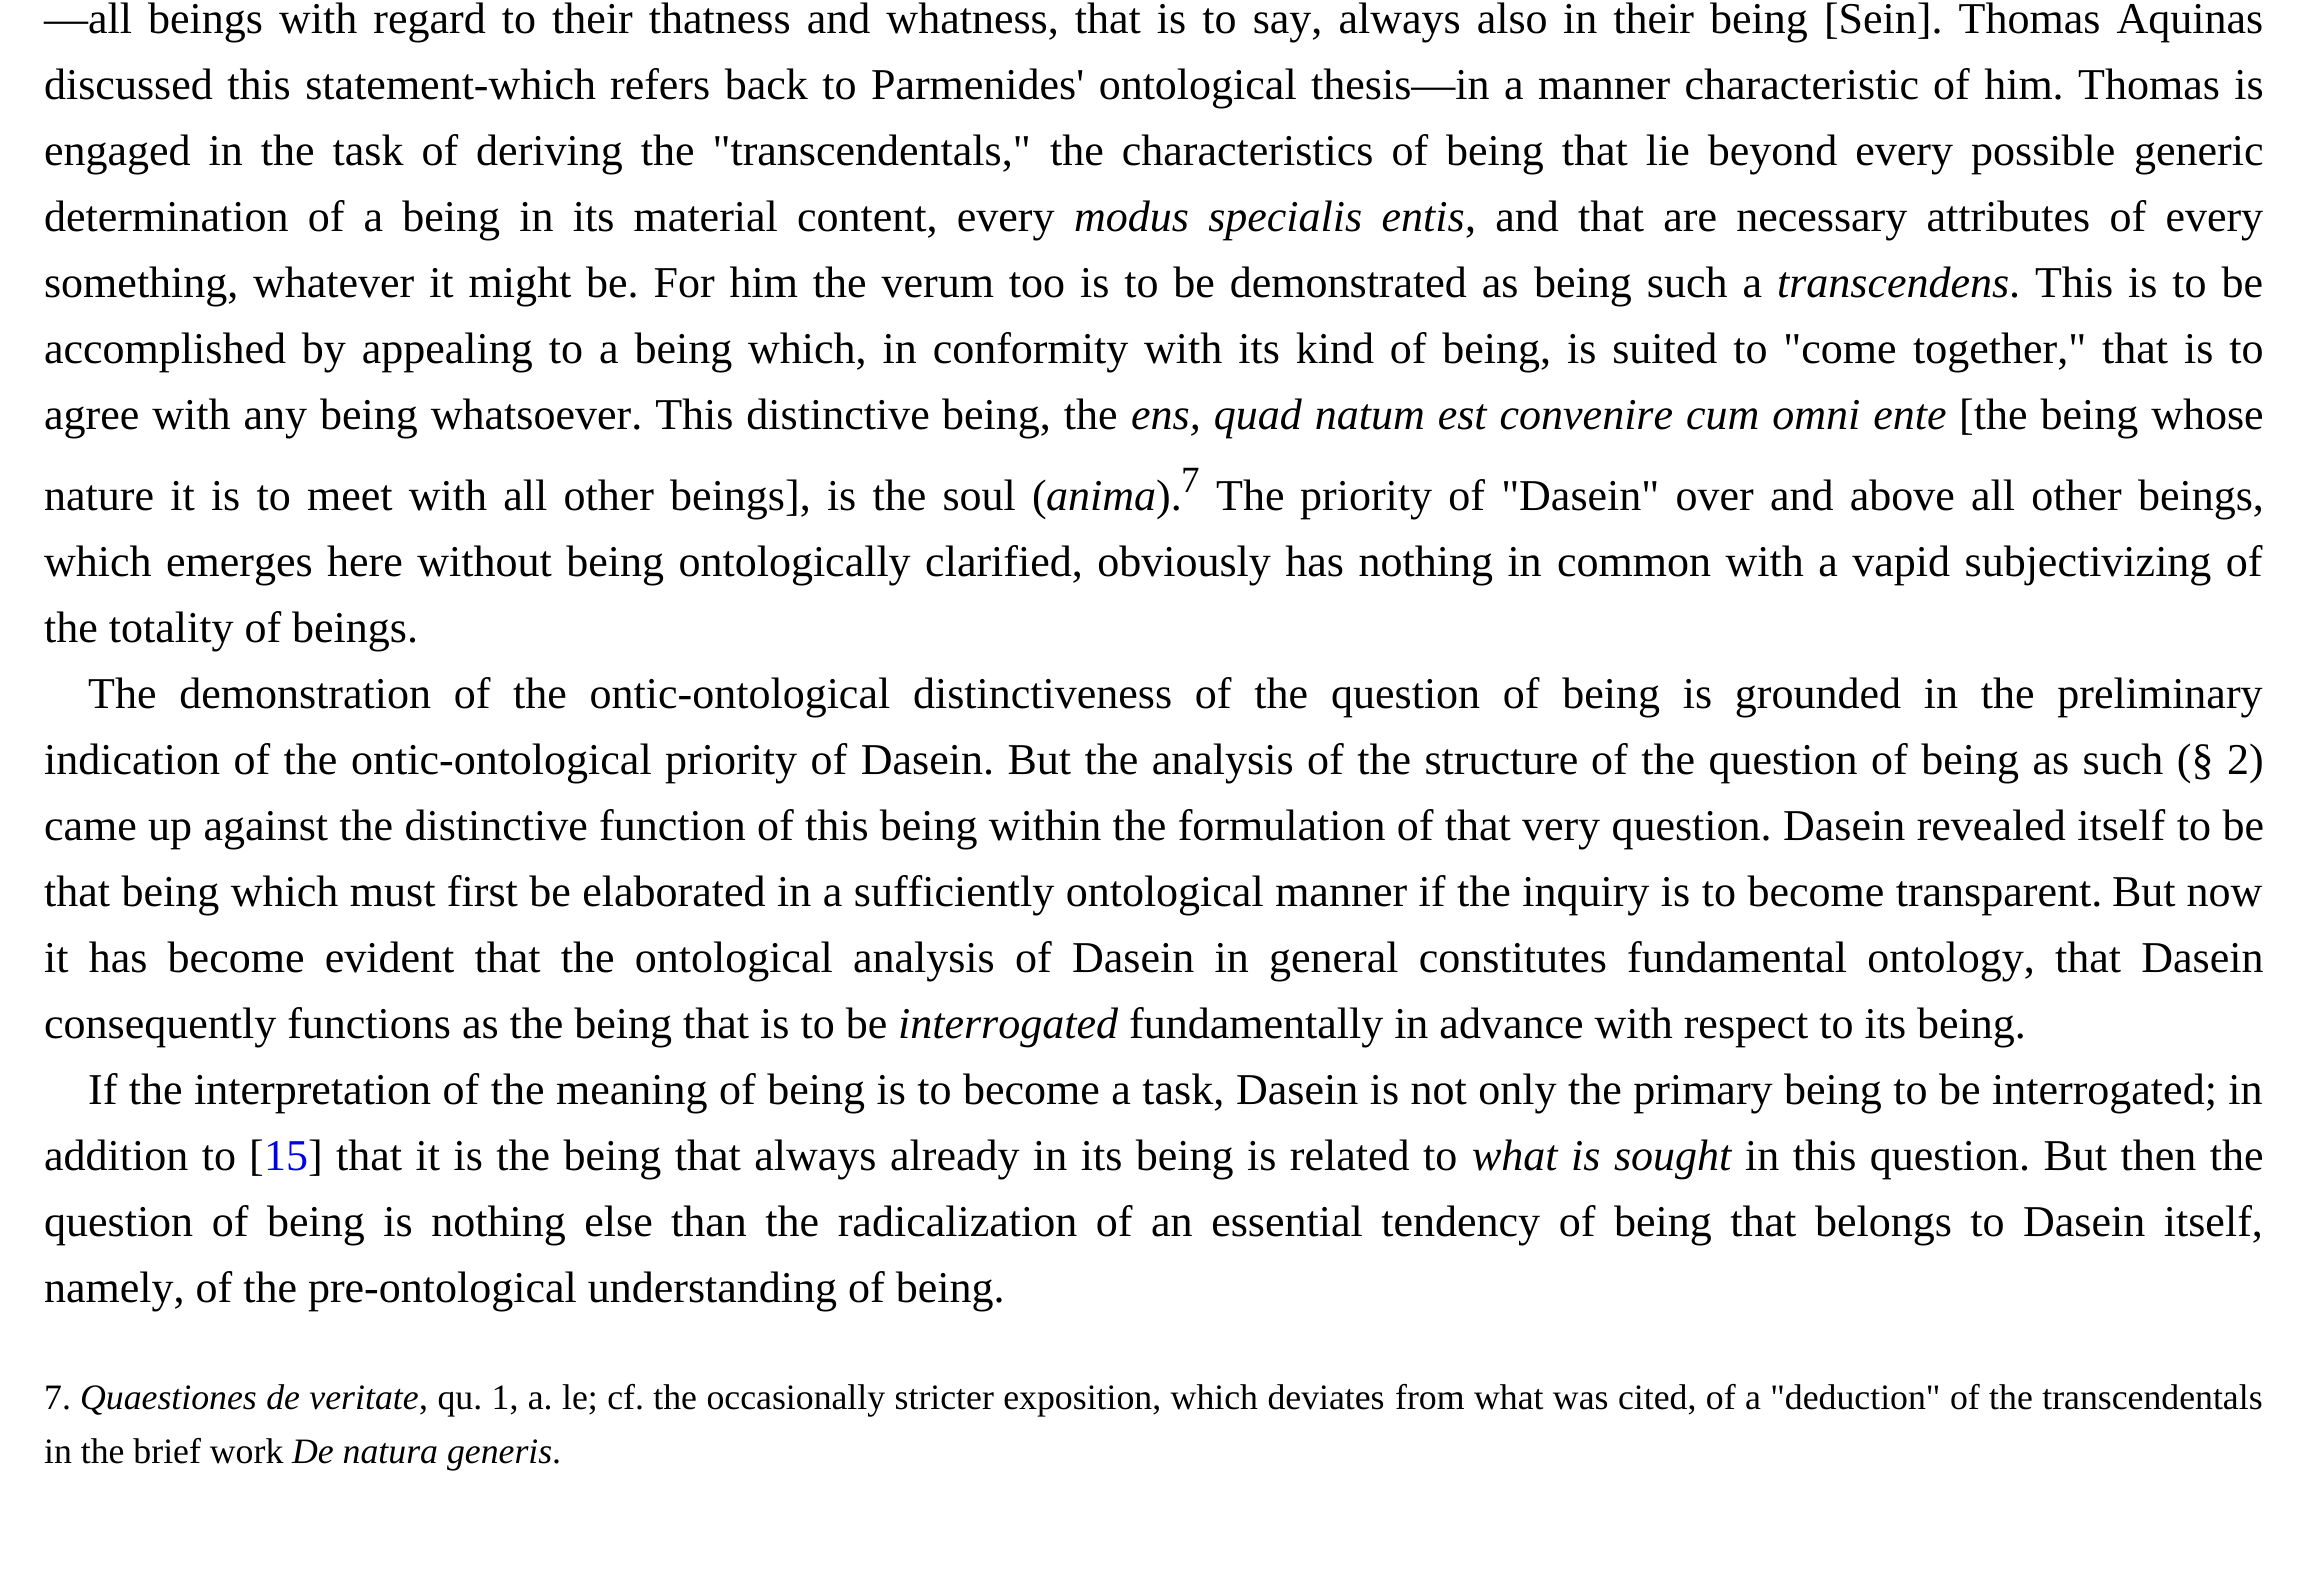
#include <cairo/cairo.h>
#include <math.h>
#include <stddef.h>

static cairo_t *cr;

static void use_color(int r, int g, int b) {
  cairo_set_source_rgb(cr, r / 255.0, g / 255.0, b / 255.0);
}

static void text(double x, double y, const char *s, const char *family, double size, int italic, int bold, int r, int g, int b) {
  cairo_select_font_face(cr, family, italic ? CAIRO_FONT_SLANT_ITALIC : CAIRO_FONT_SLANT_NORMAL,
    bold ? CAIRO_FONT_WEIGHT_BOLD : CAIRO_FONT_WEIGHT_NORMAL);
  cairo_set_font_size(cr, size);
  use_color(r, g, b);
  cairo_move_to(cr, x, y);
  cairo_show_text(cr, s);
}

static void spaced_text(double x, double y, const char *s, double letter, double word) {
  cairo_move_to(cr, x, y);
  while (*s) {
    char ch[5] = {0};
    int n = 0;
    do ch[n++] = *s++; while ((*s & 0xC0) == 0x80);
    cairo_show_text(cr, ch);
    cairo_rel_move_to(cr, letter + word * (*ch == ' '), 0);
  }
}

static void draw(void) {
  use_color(255, 255, 255);
  cairo_paint(cr);
  cairo_select_font_face(cr, "Liberation Serif", CAIRO_FONT_SLANT_NORMAL, CAIRO_FONT_WEIGHT_NORMAL);
  cairo_set_font_size(cr, 44);
  use_color(0, 0, 0);
  spaced_text(44, 33, "—all beings", 0, 5.1);
  spaced_text(279, 33, "with regard to their thatness and whatness, that is to say, always also", 0, 5.1);
  spaced_text(1563, 33, "in their being [Sein]. Thomas Aquinas", 0, 5.1);
  spaced_text(44, 99, "discussed this statement-which", 0, 3.5);
  spaced_text(610, 99, "refers back to Parmenides' ontological thesis—in a manner characteristic", 0, 3.5);
  spaced_text(1933, 99, "of him. Thomas is", 0, 3.5);
  spaced_text(44, 165, "engaged in the task of deriving the \"transcendentals,\"", 0, 7);
  spaced_text(1050, 165, "the characteristics of being that lie beyond every possible", 0, 7);
  text(2134, 165, "generic", "Liberation Serif", 44, 0, 0, 0, 0, 0);
  spaced_text(44, 231, "determination of a being in its material content, every", 0, 8.25);
  cairo_select_font_face(cr, "Liberation Serif", CAIRO_FONT_SLANT_ITALIC, CAIRO_FONT_WEIGHT_NORMAL);
  spaced_text(1074, 231, "modus specialis entis", 0, 8.25);
  cairo_select_font_face(cr, "Liberation Serif", CAIRO_FONT_SLANT_NORMAL, CAIRO_FONT_WEIGHT_NORMAL);
  spaced_text(1465, 231, ", and that are necessary attributes of every", 0, 8.25);
  text(44, 297, "something,", "Liberation Serif", 44, 0, 0, 0, 0, 0);
  spaced_text(253, 297, "whatever it might be. For him the verum too is to be demonstrated as", 0, 3.9);
  spaced_text(1534, 297, "being such a", 0, 4);
  text(1777, 297, "transcendens", "Liberation Serif", 44, 1, 0, 0, 0, 0);
  cairo_select_font_face(cr, "Liberation Serif", CAIRO_FONT_SLANT_NORMAL, CAIRO_FONT_WEIGHT_NORMAL);
  spaced_text(2009, 297, ". This is to be", 0, 3.9);
  spaced_text(44, 363, "accomplished by appealing to", 0, 4.9);
  spaced_text(599, 363, "a being which, in conformity with its kind of being, is suited to \"come", 0, 4.9);
  spaced_text(1913, 363, "together,\" that is to", 0, 4.9);
  spaced_text(44, 429, "agree with any being whatsoever. This distinctive", 0, 2);
  spaced_text(942, 429, "being, the", 0, 2);
  cairo_select_font_face(cr, "Liberation Serif", CAIRO_FONT_SLANT_ITALIC, CAIRO_FONT_WEIGHT_NORMAL);
  spaced_text(1131, 429, "ens, quad natum est convenire cum omni ente", 0, 2);
  cairo_select_font_face(cr, "Liberation Serif", CAIRO_FONT_SLANT_NORMAL, CAIRO_FONT_WEIGHT_NORMAL);
  spaced_text(1959, 429, "[the being whose", 0, 2);
  spaced_text(44, 510, "nature it is to meet with all other beings], is the soul (", 0, 5.25);
  text(1046, 510, "anima", "Liberation Serif", 44, 1, 0, 0, 0, 0);
  text(1156, 510, ").", "Liberation Serif", 44, 0, 0, 0, 0, 0);
  text(1181, 492, "7", "Liberation Serif", 37, 0, 0, 0, 0, 0);
  text(1216, 510, "The", "Liberation Serif", 44, 0, 0, 0, 0, 0);
  spaced_text(1300, 510, "priority of \"Dasein\" over and above all other beings,", 0, 5.25);
  spaced_text(44, 576, "which emerges", 0, 3.5);
  spaced_text(327, 576, "here without being ontologically clarified, obviously has nothing in", 0, 3.5);
  spaced_text(1557, 576, "common with a vapid subjectivizing of", 0, 3.5);
  text(44, 642, "the totality of beings.", "Liberation Serif", 44, 0, 0, 0, 0, 0);
  spaced_text(88, 708, "The demonstration of the ontic-ontological distinctiveness of the", 0, 11.75);
  spaced_text(1331, 708, "question of being is grounded in the preliminary", 0, 11.75);
  spaced_text(44, 774, "indication of the", 0, 2.5);
  spaced_text(351, 774, "ontic-ontological priority of Dasein. But the analysis of the structure", 0, 2.5);
  spaced_text(1591, 774, "of the question of being as such (§ 2)", 0, 2.5);
  spaced_text(44, 840, "came up against the distinctive function of this being within the formulation of that very question.", 0, 0.3);
  spaced_text(1783, 840, "Dasein revealed itself to be", 0, 0.5);
  spaced_text(44, 906, "that being which must first be elaborated", 0, 0.5);
  spaced_text(777, 906, "in a sufficiently ontological manner if the inquiry is to become transparent.", 0, 0.5);
  text(2112, 906, "But now", "Liberation Serif", 44, 0, 0, 0, 0, 0);
  spaced_text(44, 972, "it has become evident that the ontological analysis of", 0, 9.25);
  spaced_text(1072, 972, "Dasein in general constitutes fundamental ontology, that Dasein", 0, 9.25);
  text(44, 1038, "consequently functions as the being that is to be", "Liberation Serif", 44, 0, 0, 0, 0, 0);
  text(898, 1038, "interrogated", "Liberation Serif", 44, 1, 0, 0, 0, 0);
  text(1129, 1038, "fundamentally in advance with respect to its being.", "Liberation Serif", 44, 0, 0, 0, 0, 0);
  spaced_text(88, 1104, "If the interpretation of the meaning of being is to become a task,", 0, 0.5);
  spaced_text(1236, 1104, "Dasein is not only the primary being to be interrogated; in", 0, 0.5);
  spaced_text(44, 1170, "addition to", 0, 2.5);
  text(249, 1170, "[", "Liberation Serif", 44, 0, 0, 0, 0, 0);
  text(264, 1170, "15", "Liberation Serif", 44, 0, 0, 0, 0, 238);
  text(308, 1170, "]", "Liberation Serif", 44, 0, 0, 0, 0, 0);
  spaced_text(336, 1170, "that it is the being that always already in its being is related to", 0, 2.5);
  cairo_select_font_face(cr, "Liberation Serif", CAIRO_FONT_SLANT_ITALIC, CAIRO_FONT_WEIGHT_NORMAL);
  spaced_text(1472, 1170, "what is sought", 0, 2.5);
  cairo_select_font_face(cr, "Liberation Serif", CAIRO_FONT_SLANT_NORMAL, CAIRO_FONT_WEIGHT_NORMAL);
  spaced_text(1745, 1170, "in this question. But then the", 0, 2.5);
  spaced_text(44, 1236, "question of being is nothing else", 0, 7.6);
  spaced_text(671, 1236, "than the radicalization of an essential tendency of being that belongs to", 0, 7.6);
  spaced_text(2023, 1236, "Dasein itself,", 0, 7.6);
  text(44, 1302, "namely, of the pre-ontological understanding of being.", "Liberation Serif", 44, 0, 0, 0, 0, 0);
  text(44, 1409, "7.", "Liberation Serif", 35.75, 0, 0, 0, 0, 0);
  cairo_select_font_face(cr, "Liberation Serif", CAIRO_FONT_SLANT_ITALIC, CAIRO_FONT_WEIGHT_NORMAL);
  spaced_text(80, 1409, "Quaestiones de veritate", 0, 0.5);
  cairo_select_font_face(cr, "Liberation Serif", CAIRO_FONT_SLANT_NORMAL, CAIRO_FONT_WEIGHT_NORMAL);
  spaced_text(419, 1409, ", qu. 1, a. le; cf. the occasionally stricter exposition, which deviates", 0, 0.5);
  spaced_text(1395, 1409, "from what was cited, of a \"deduction\" of the transcendentals", 0, 0.5);
  text(44, 1463, "in the brief work", "Liberation Serif", 35.75, 0, 0, 0, 0, 0);
  text(292, 1463, "De natura generis", "Liberation Serif", 35.75, 1, 0, 0, 0, 0);
  text(552, 1463, ".", "Liberation Serif", 35.75, 0, 0, 0, 0, 0);
}

int main(void) {
  cairo_surface_t *surface = cairo_image_surface_create(CAIRO_FORMAT_RGB24, 2307, 1571);
  cr = cairo_create(surface);
  cairo_font_options_t *options = cairo_font_options_create();
  cairo_font_options_set_hint_metrics(options, CAIRO_HINT_METRICS_OFF);
  cairo_font_options_set_hint_style(options, CAIRO_HINT_STYLE_NONE);
  cairo_set_font_options(cr, options);
  cairo_set_miter_limit(cr, 4);
  draw();
  cairo_surface_write_to_png(surface, "out.png");
  cairo_font_options_destroy(options);
  cairo_destroy(cr);
  cairo_surface_destroy(surface);
  return 0;
}
